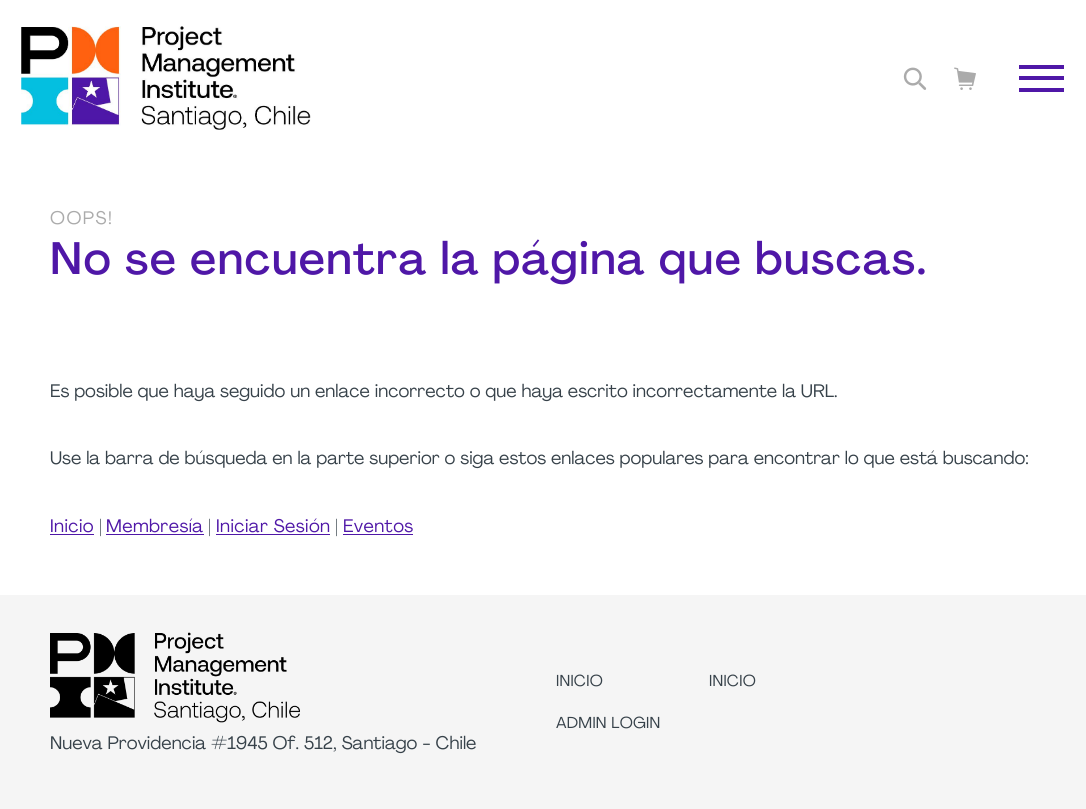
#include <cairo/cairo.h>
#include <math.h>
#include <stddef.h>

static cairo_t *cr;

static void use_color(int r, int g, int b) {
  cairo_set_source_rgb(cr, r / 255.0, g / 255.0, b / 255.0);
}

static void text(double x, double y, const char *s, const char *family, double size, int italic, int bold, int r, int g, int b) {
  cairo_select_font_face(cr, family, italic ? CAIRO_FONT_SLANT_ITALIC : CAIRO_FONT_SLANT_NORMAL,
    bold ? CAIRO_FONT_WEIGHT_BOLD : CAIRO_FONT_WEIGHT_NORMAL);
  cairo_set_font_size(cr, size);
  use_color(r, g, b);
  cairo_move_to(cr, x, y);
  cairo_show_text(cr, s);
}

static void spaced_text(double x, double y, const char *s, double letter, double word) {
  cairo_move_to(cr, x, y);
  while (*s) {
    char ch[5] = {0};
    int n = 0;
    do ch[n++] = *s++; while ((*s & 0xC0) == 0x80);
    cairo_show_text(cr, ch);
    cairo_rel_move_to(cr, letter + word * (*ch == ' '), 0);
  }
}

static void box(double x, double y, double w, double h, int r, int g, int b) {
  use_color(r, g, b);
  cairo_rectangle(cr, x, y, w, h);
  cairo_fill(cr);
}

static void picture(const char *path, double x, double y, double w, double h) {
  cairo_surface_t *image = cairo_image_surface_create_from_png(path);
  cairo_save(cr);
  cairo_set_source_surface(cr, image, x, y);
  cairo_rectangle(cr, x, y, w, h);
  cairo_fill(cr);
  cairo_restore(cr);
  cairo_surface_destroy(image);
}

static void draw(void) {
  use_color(255, 255, 255);
  cairo_paint(cr);
  picture("img_01.png", 21, 26, 290, 104);
  picture("img_02.png", 903, 67, 24, 23);
  picture("img_03.png", 954, 67, 22, 23);
  box(1019, 65, 45, 4, 79, 23, 167);
  box(1019, 76, 45, 4, 79, 23, 167);
  box(1019, 88, 45, 4, 79, 23, 167);
  box(50, 534, 44, 1, 79, 23, 167);
  box(106, 534, 98, 1, 79, 23, 167);
  box(216, 534, 114, 1, 79, 23, 167);
  box(343, 534, 70, 1, 79, 23, 167);
  box(0, 595, 1086, 214, 245, 245, 245);
  picture("img_04.png", 50, 632, 250, 91);
  cairo_select_font_face(cr, "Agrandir", CAIRO_FONT_SLANT_NORMAL, CAIRO_FONT_WEIGHT_NORMAL);
  cairo_set_font_size(cr, 18);
  use_color(171, 171, 171);
  spaced_text(50, 224, "OOPS!", 1.5, 0);
  cairo_select_font_face(cr, "Agrandir Medium", CAIRO_FONT_SLANT_NORMAL, CAIRO_FONT_WEIGHT_NORMAL);
  cairo_set_font_size(cr, 45);
  use_color(79, 23, 167);
  spaced_text(50, 274, "No se encuentra la página que buscas.", 1.35, 0);
  text(50, 397, "Es posible que haya seguido un enlace incorrecto o que haya escrito incorrectamente la URL.", "Agrandir", 18, 0, 0, 55, 66, 74);
  text(50, 464, "Use la barra de búsqueda en la parte superior o siga estos enlaces populares para encontrar lo que está buscando:", "Agrandir", 18, 0, 0, 55, 66, 74);
  use_color(79, 23, 167);
  spaced_text(50, 532, "Inicio", 0.4, 0);
  text(99, 532, "|", "Agrandir", 18, 0, 0, 55, 66, 74);
  use_color(79, 23, 167);
  spaced_text(106, 532, "Membresía", 0.4, 0);
  text(208, 532, "|", "Agrandir", 18, 0, 0, 55, 66, 74);
  use_color(79, 23, 167);
  spaced_text(216, 532, "Iniciar Sesión", 0.4, 0);
  text(335, 532, "|", "Agrandir", 18, 0, 0, 55, 66, 74);
  use_color(79, 23, 167);
  spaced_text(343, 532, "Eventos", 0.4, 0);
  cairo_set_font_size(cr, 15.75);
  use_color(55, 66, 74);
  spaced_text(556, 686, "INICIO", 0.25, 0);
  spaced_text(556, 728, "ADMIN LOGIN", 0.25, 0);
  spaced_text(709, 686, "INICIO", 0.25, 0);
  text(50, 749, "Nueva Providencia #1945 Of. 512, Santiago - Chile", "Agrandir", 18, 0, 0, 55, 66, 74);
}

int main(void) {
  cairo_surface_t *surface = cairo_image_surface_create(CAIRO_FORMAT_RGB24, 1086, 809);
  cr = cairo_create(surface);
  cairo_font_options_t *options = cairo_font_options_create();
  cairo_font_options_set_hint_metrics(options, CAIRO_HINT_METRICS_OFF);
  cairo_font_options_set_hint_style(options, CAIRO_HINT_STYLE_NONE);
  cairo_set_font_options(cr, options);
  cairo_set_miter_limit(cr, 4);
  draw();
  cairo_surface_write_to_png(surface, "out.png");
  cairo_font_options_destroy(options);
  cairo_destroy(cr);
  cairo_surface_destroy(surface);
  return 0;
}
